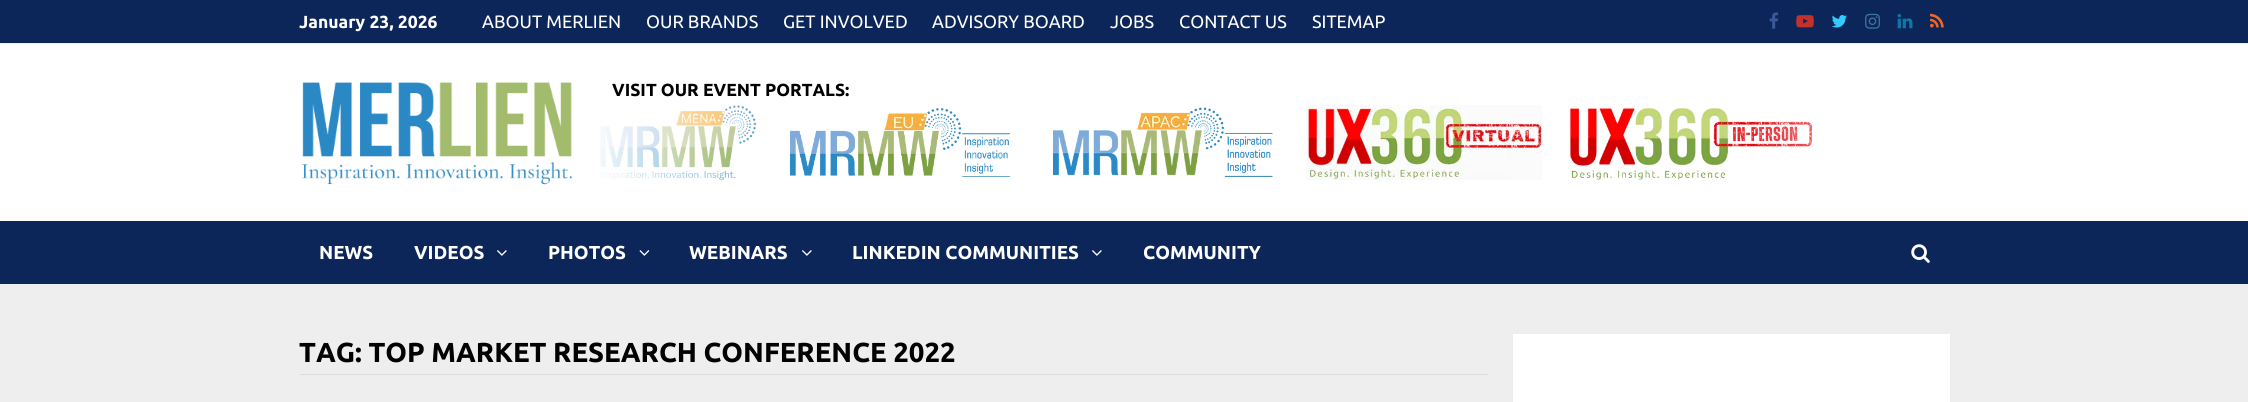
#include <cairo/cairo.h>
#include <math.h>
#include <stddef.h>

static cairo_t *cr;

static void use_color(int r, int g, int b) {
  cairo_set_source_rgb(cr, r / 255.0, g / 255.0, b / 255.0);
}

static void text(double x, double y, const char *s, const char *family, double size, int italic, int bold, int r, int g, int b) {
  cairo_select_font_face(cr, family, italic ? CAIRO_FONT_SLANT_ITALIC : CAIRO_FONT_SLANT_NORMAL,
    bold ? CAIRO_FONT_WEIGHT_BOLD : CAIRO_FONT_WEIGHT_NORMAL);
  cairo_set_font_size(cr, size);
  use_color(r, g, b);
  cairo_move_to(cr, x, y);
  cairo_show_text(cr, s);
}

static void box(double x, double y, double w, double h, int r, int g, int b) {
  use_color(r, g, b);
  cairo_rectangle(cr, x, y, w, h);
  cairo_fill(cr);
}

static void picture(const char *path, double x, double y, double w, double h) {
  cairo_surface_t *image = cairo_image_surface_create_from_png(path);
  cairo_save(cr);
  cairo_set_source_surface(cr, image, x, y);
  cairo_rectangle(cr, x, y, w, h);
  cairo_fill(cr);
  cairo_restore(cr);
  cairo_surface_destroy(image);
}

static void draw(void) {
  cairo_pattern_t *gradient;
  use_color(238, 238, 238);
  cairo_paint(cr);
  box(0, 0, 2248, 43, 12, 38, 90);
  picture("img_01.png", 1769, 12, 10, 17);
  picture("img_02.png", 1796, 15, 18, 13);
  picture("img_03.png", 1831, 15, 16, 13);
  picture("img_04.png", 1865, 13, 15, 16);
  picture("img_05.png", 1897, 14, 16, 15);
  picture("img_06.png", 1930, 13, 14, 15);
  box(0, 44, 2248, 177, 255, 255, 255);
  picture("img_07.png", 301, 82, 272, 103);
  picture("img_08.png", 600, 105, 157, 75);
  picture("img_09.png", 790, 108, 220, 69);
  picture("img_10.png", 1053, 107, 220, 70);
  picture("img_11.png", 1306, 105, 236, 75);
  picture("img_12.png", 1570, 108, 243, 72);
  gradient = cairo_pattern_create_linear(588, 143, 788, 143);
  cairo_pattern_add_color_stop_rgba(gradient, 0, 1, 1, 1, 1);
  cairo_pattern_add_color_stop_rgba(gradient, 1, 1, 1, 1, 0);
  cairo_set_source(cr, gradient);
  cairo_pattern_destroy(gradient);
  cairo_rectangle(cr, 600, 105, 156, 75);
  cairo_fill(cr);
  gradient = cairo_pattern_create_linear(1950, 143, 1750, 143);
  cairo_pattern_add_color_stop_rgba(gradient, 0, 1, 1, 1, 1);
  cairo_pattern_add_color_stop_rgba(gradient, 1, 1, 1, 1, 0);
  cairo_set_source(cr, gradient);
  cairo_pattern_destroy(gradient);
  cairo_rectangle(cr, 1754, 121, 59, 26);
  cairo_fill(cr);
  box(0, 221, 2248, 63, 12, 38, 90);
  picture("img_13.png", 497, 250, 10, 6);
  picture("img_14.png", 639, 250, 11, 6);
  picture("img_13.png", 802, 250, 10, 6);
  picture("img_13.png", 1092, 250, 10, 6);
  picture("img_15.png", 1911, 244, 19, 19);
  box(300, 374, 1188, 1, 221, 221, 221);
  box(1513, 334, 437, 68, 255, 255, 255);
  text(299, 28, "January 23, 2026", "Ubuntu", 17.5, 0, 1, 255, 255, 255);
  text(482, 28, "ABOUT MERLIEN", "Ubuntu", 18, 0, 0, 255, 255, 255);
  text(646, 28, "OUR BRANDS", "Ubuntu", 18, 0, 0, 255, 255, 255);
  text(783, 28, "GET INVOLVED", "Ubuntu", 18, 0, 0, 255, 255, 255);
  text(932, 28, "ADVISORY BOARD", "Ubuntu", 18, 0, 0, 255, 255, 255);
  text(1110, 28, "JOBS", "Ubuntu", 18, 0, 0, 255, 255, 255);
  text(1179, 28, "CONTACT US", "Ubuntu", 18, 0, 0, 255, 255, 255);
  text(1312, 28, "SITEMAP", "Ubuntu", 18, 0, 0, 255, 255, 255);
  text(612, 96, "VISIT OUR EVENT PORTALS:", "Ubuntu", 17.5, 0, 1, 0, 0, 0);
  text(319, 259, "NEWS", "Ubuntu", 18.75, 0, 1, 255, 255, 255);
  text(414, 259, "VIDEOS", "Ubuntu", 18.75, 0, 1, 255, 255, 255);
  text(548, 259, "PHOTOS", "Ubuntu", 18.75, 0, 1, 255, 255, 255);
  text(689, 259, "WEBINARS", "Ubuntu", 18.75, 0, 1, 255, 255, 255);
  text(852, 259, "LINKEDIN COMMUNITIES", "Ubuntu", 18.75, 0, 1, 255, 255, 255);
  text(1143, 259, "COMMUNITY", "Ubuntu", 18.75, 0, 1, 255, 255, 255);
  text(299, 362, "TAG: TOP MARKET RESEARCH CONFERENCE 2022", "Ubuntu", 27.5, 0, 1, 0, 0, 0);
}

int main(void) {
  cairo_surface_t *surface = cairo_image_surface_create(CAIRO_FORMAT_RGB24, 2248, 402);
  cr = cairo_create(surface);
  cairo_font_options_t *options = cairo_font_options_create();
  cairo_font_options_set_hint_metrics(options, CAIRO_HINT_METRICS_OFF);
  cairo_font_options_set_hint_style(options, CAIRO_HINT_STYLE_NONE);
  cairo_set_font_options(cr, options);
  cairo_set_miter_limit(cr, 4);
  draw();
  cairo_surface_write_to_png(surface, "out.png");
  cairo_font_options_destroy(options);
  cairo_destroy(cr);
  cairo_surface_destroy(surface);
  return 0;
}
